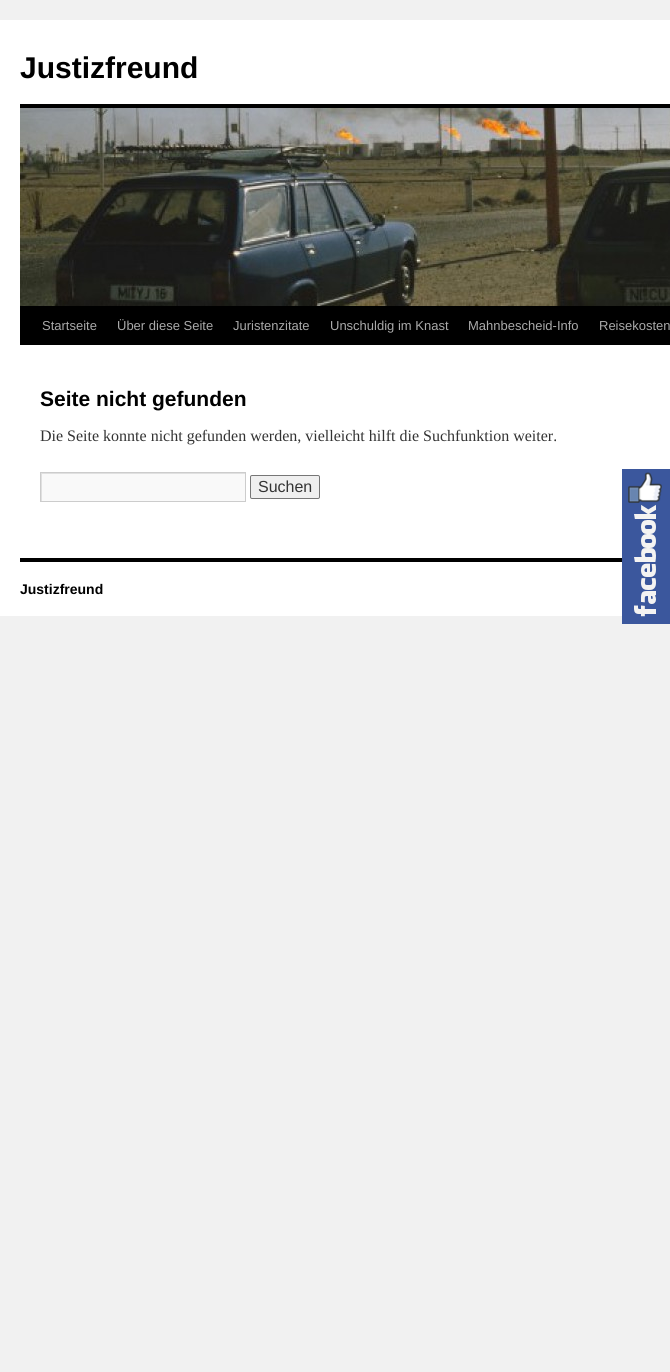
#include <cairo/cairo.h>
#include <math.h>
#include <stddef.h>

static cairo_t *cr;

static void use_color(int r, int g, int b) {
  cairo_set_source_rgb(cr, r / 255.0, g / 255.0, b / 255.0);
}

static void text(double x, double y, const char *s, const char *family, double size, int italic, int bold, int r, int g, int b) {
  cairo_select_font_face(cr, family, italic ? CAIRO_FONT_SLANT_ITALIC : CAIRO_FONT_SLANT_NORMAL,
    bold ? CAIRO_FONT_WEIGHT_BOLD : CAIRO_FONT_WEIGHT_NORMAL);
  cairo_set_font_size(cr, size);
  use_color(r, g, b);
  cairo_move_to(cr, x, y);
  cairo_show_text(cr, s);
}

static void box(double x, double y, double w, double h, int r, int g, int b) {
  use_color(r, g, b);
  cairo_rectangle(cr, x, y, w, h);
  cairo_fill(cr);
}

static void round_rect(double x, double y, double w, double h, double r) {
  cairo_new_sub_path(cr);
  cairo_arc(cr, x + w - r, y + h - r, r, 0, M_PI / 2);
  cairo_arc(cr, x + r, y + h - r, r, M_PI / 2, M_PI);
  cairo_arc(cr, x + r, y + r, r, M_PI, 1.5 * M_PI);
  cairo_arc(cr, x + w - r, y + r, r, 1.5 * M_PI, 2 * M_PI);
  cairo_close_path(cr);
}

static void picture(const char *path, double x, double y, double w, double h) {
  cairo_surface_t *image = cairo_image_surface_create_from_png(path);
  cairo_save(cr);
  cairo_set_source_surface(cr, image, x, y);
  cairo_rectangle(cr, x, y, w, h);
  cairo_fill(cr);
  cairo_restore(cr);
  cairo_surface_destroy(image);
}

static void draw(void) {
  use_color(241, 241, 241);
  cairo_paint(cr);
  box(0, 20, 670, 596, 255, 255, 255);
  box(20, 104, 650, 4, 0, 0, 0);
  box(20, 306, 650, 39, 0, 0, 0);
  picture("img_01.png", 20, 108, 650, 198);
  box(42, 474, 203, 27, 249, 249, 249);
  cairo_save(cr);
  cairo_rectangle(cr, 41, 473, 204, 28);
  cairo_clip(cr);
  use_color(224, 224, 224);
  cairo_set_fill_rule(cr, CAIRO_FILL_RULE_EVEN_ODD);
  cairo_new_path(cr);
  cairo_move_to(cr, -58, 374);
  cairo_line_to(cr, 344, 374);
  cairo_line_to(cr, 344, 600);
  cairo_line_to(cr, -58, 600);
  cairo_close_path(cr);
  cairo_move_to(cr, 42, 474);
  cairo_line_to(cr, 246, 474);
  cairo_line_to(cr, 246, 502);
  cairo_line_to(cr, 42, 502);
  cairo_close_path(cr);
  cairo_fill(cr);
  cairo_restore(cr);
  cairo_rectangle(cr, 40.5, 472.5, 205, 29);
  use_color(204, 204, 204);
  cairo_set_line_width(cr, 1);
  cairo_stroke(cr);
  use_color(239, 239, 239);
  round_rect(250.5, 475.5, 69, 23, 1.5);
  cairo_fill_preserve(cr);
  use_color(118, 118, 118);
  cairo_stroke(cr);
  box(20, 558, 602, 4, 0, 0, 0);
  picture("img_02.png", 622, 469, 48, 155);
  text(20, 78, "Justizfreund", "Liberation Sans", 30, 0, 1, 0, 0, 0);
  text(42, 330, "Startseite", "Liberation Sans", 13, 0, 0, 170, 170, 170);
  text(117, 330, "Über diese Seite", "Liberation Sans", 13, 0, 0, 170, 170, 170);
  text(233, 330, "Juristenzitate", "Liberation Sans", 13, 0, 0, 170, 170, 170);
  text(330, 330, "Unschuldig im Knast", "Liberation Sans", 13, 0, 0, 170, 170, 170);
  text(468, 330, "Mahnbescheid-Info", "Liberation Sans", 13, 0, 0, 170, 170, 170);
  text(599, 330, "Reisekosten", "Liberation Sans", 13, 0, 0, 170, 170, 170);
  text(40, 406, "Seite nicht gefunden", "Liberation Sans", 21, 0, 1, 0, 0, 0);
  text(40, 441, "Die Seite konnte nicht gefunden werden, vielleicht hilft die Suchfunktion weiter.", "Liberation Serif", 16, 0, 0, 51, 51, 51);
  text(258, 492, "Suchen", "Liberation Sans", 16, 0, 0, 51, 51, 51);
  text(20, 594, "Justizfreund", "Liberation Sans", 14, 0, 1, 0, 0, 0);
}

int main(void) {
  cairo_surface_t *surface = cairo_image_surface_create(CAIRO_FORMAT_RGB24, 670, 1372);
  cr = cairo_create(surface);
  cairo_font_options_t *options = cairo_font_options_create();
  cairo_font_options_set_hint_metrics(options, CAIRO_HINT_METRICS_OFF);
  cairo_font_options_set_hint_style(options, CAIRO_HINT_STYLE_NONE);
  cairo_set_font_options(cr, options);
  cairo_set_miter_limit(cr, 4);
  draw();
  cairo_surface_write_to_png(surface, "out.png");
  cairo_font_options_destroy(options);
  cairo_destroy(cr);
  cairo_surface_destroy(surface);
  return 0;
}
